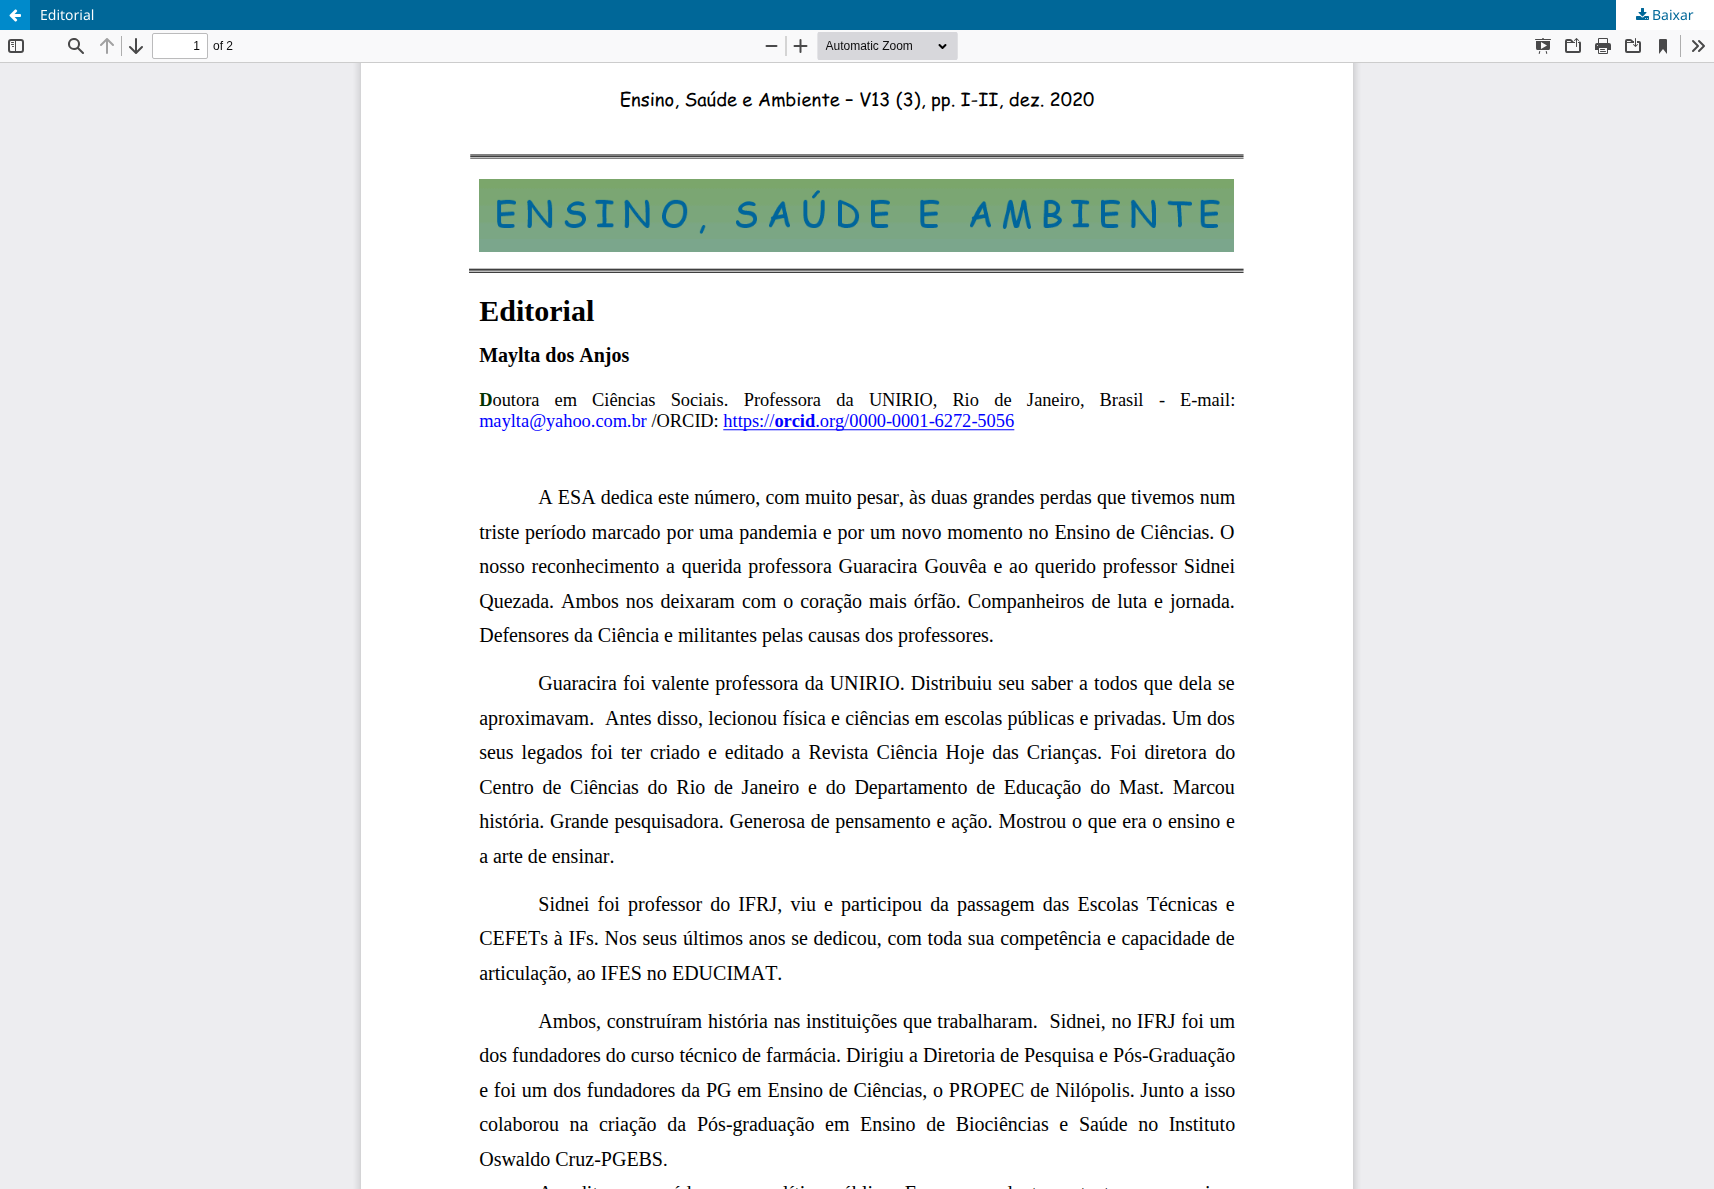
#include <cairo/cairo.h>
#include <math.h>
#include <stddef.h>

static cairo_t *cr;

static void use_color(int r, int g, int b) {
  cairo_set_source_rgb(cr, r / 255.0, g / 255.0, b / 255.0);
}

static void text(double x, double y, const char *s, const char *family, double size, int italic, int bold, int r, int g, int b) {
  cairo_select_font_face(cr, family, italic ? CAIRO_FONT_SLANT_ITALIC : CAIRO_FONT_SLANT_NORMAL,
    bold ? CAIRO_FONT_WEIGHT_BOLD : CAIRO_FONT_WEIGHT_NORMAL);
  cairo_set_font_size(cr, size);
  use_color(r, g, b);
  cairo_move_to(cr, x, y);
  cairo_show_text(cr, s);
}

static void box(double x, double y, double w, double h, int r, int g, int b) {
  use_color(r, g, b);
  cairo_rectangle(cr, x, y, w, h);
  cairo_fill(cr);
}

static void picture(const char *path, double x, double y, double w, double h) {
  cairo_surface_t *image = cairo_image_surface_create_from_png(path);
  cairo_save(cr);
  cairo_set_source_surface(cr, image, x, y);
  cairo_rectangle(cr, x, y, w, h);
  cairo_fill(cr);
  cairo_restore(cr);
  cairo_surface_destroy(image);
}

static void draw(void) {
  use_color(255, 255, 255);
  cairo_paint(cr);
  box(30, 0, 1586, 30, 0, 103, 152);
  box(0, 0, 30, 30, 0, 138, 203);
  picture("img_01.png", 9, 9, 12, 13);
  picture("img_02.png", 1636, 8, 13, 12);
  picture("img_03.png", 0, 30, 1714, 1159);
  text(40, 20, "Editorial", "Noto Sans", 14, 0, 0, 255, 255, 255);
  text(1652, 20, "Baixar", "Noto Sans", 14, 0, 0, 0, 103, 152);
}

int main(void) {
  cairo_surface_t *surface = cairo_image_surface_create(CAIRO_FORMAT_RGB24, 1714, 1189);
  cr = cairo_create(surface);
  cairo_font_options_t *options = cairo_font_options_create();
  cairo_font_options_set_hint_metrics(options, CAIRO_HINT_METRICS_OFF);
  cairo_font_options_set_hint_style(options, CAIRO_HINT_STYLE_NONE);
  cairo_set_font_options(cr, options);
  cairo_set_miter_limit(cr, 4);
  draw();
  cairo_surface_write_to_png(surface, "out.png");
  cairo_font_options_destroy(options);
  cairo_destroy(cr);
  cairo_surface_destroy(surface);
  return 0;
}
